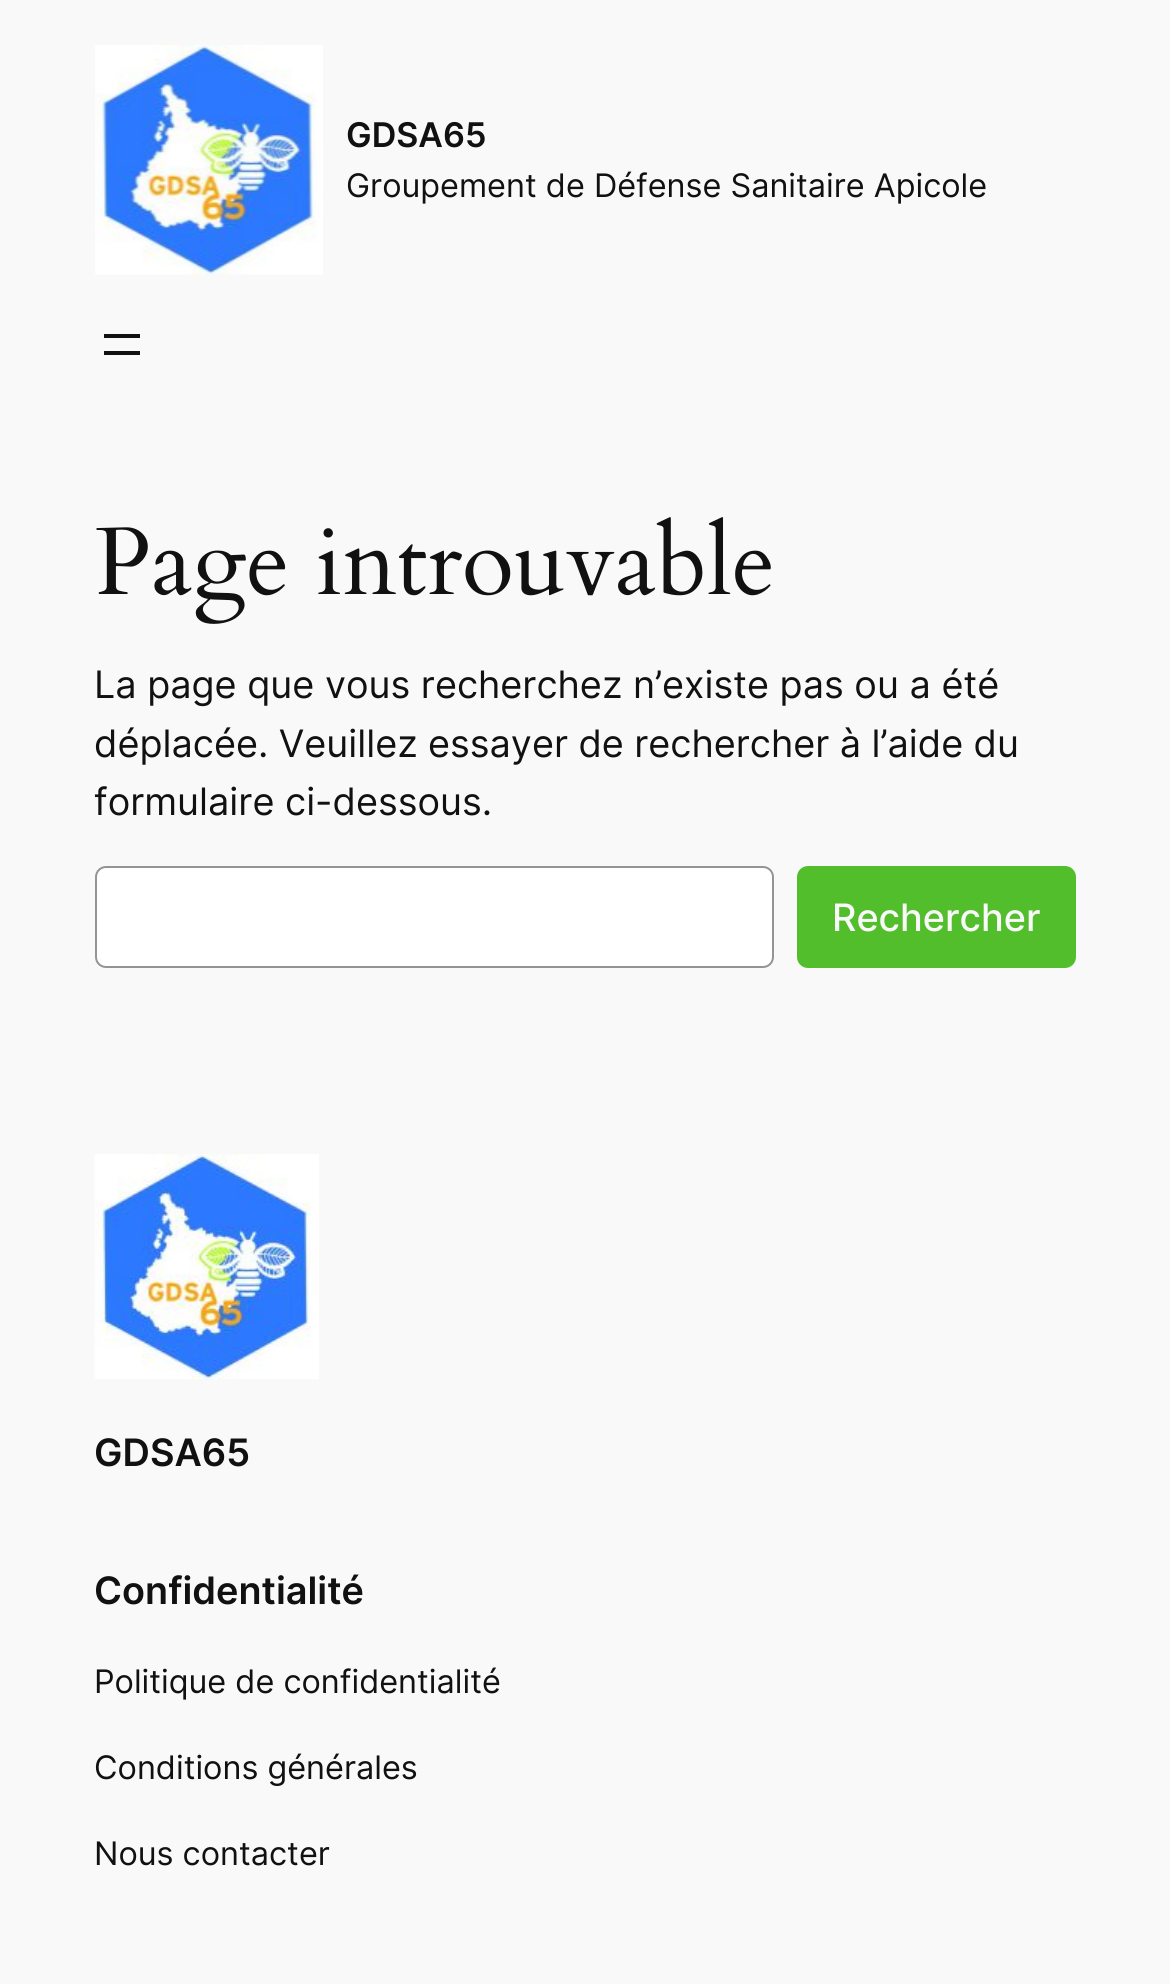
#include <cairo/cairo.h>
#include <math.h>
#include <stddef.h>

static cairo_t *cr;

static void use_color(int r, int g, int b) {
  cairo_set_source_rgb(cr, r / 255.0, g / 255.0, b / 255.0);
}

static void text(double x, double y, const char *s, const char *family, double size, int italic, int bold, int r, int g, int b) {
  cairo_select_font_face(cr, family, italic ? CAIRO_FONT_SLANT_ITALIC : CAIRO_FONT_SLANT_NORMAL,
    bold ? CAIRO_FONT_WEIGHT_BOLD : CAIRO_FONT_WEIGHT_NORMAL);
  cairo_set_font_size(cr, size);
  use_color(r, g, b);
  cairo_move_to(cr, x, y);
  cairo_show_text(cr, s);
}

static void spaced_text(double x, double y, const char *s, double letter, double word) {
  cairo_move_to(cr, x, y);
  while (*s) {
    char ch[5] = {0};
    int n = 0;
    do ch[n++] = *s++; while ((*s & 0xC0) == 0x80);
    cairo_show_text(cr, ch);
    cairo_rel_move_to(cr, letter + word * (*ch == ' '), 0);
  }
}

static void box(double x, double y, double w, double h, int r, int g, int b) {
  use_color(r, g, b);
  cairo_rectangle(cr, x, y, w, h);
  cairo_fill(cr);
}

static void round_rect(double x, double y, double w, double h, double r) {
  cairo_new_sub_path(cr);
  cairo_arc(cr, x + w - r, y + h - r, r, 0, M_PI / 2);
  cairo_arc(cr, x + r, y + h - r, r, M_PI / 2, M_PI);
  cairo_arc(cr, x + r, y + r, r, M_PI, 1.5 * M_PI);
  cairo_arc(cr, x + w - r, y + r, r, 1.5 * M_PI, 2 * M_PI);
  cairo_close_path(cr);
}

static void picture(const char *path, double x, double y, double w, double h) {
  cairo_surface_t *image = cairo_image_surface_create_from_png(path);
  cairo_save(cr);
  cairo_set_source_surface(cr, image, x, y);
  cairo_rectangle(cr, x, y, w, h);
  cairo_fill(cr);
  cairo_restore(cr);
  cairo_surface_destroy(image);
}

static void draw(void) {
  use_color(249, 249, 249);
  cairo_paint(cr);
  picture("img_01.png", 95, 45, 228, 230);
  box(104, 334, 36, 4, 17, 17, 17);
  box(104, 351, 36, 4, 17, 17, 17);
  picture("img_02.png", 96, 517, 675, 107);
  use_color(255, 255, 255);
  round_rect(96, 867, 677, 100, 10);
  cairo_fill_preserve(cr);
  use_color(148, 148, 148);
  cairo_stroke(cr);
  use_color(83, 190, 44);
  round_rect(797, 866, 279, 102, 11);
  cairo_fill(cr);
  picture("img_03.png", 94, 1154, 225, 225);
  text(346, 147, "GDSA65", "Inter SemiBold", 34, 0, 0, 17, 17, 17);
  text(346, 197, "Groupement de Défense Sanitaire Apicole", "Inter", 32.4, 0, 0, 17, 17, 17);
  text(94, 698, "La page que vous recherchez n’existe pas ou a été", "Inter", 37.8, 0, 0, 17, 17, 17);
  spaced_text(94, 757, "déplacée. Veuillez essayer de rechercher à l’aide du", 0, -0.25);
  text(94, 815, "formulaire ci-dessous.", "Inter", 37.8, 0, 0, 17, 17, 17);
  text(832, 931, "Rechercher", "Inter Medium", 37.8, 0, 0, 249, 249, 249);
  text(94, 1466, "GDSA65", "Inter SemiBold", 37.8, 0, 0, 17, 17, 17);
  text(94, 1604, "Confidentialité", "Inter SemiBold", 37.8, 0, 0, 17, 17, 17);
  text(94, 1693, "Politique de confidentialité", "Inter", 32.4, 0, 0, 17, 17, 17);
  text(94, 1779, "Conditions générales", "Inter", 32.4, 0, 0, 17, 17, 17);
  text(94, 1865, "Nous contacter", "Inter", 32.4, 0, 0, 17, 17, 17);
}

int main(void) {
  cairo_surface_t *surface = cairo_image_surface_create(CAIRO_FORMAT_RGB24, 1170, 1984);
  cr = cairo_create(surface);
  cairo_font_options_t *options = cairo_font_options_create();
  cairo_font_options_set_hint_metrics(options, CAIRO_HINT_METRICS_OFF);
  cairo_font_options_set_hint_style(options, CAIRO_HINT_STYLE_NONE);
  cairo_set_font_options(cr, options);
  cairo_set_miter_limit(cr, 4);
  draw();
  cairo_surface_write_to_png(surface, "out.png");
  cairo_font_options_destroy(options);
  cairo_destroy(cr);
  cairo_surface_destroy(surface);
  return 0;
}
